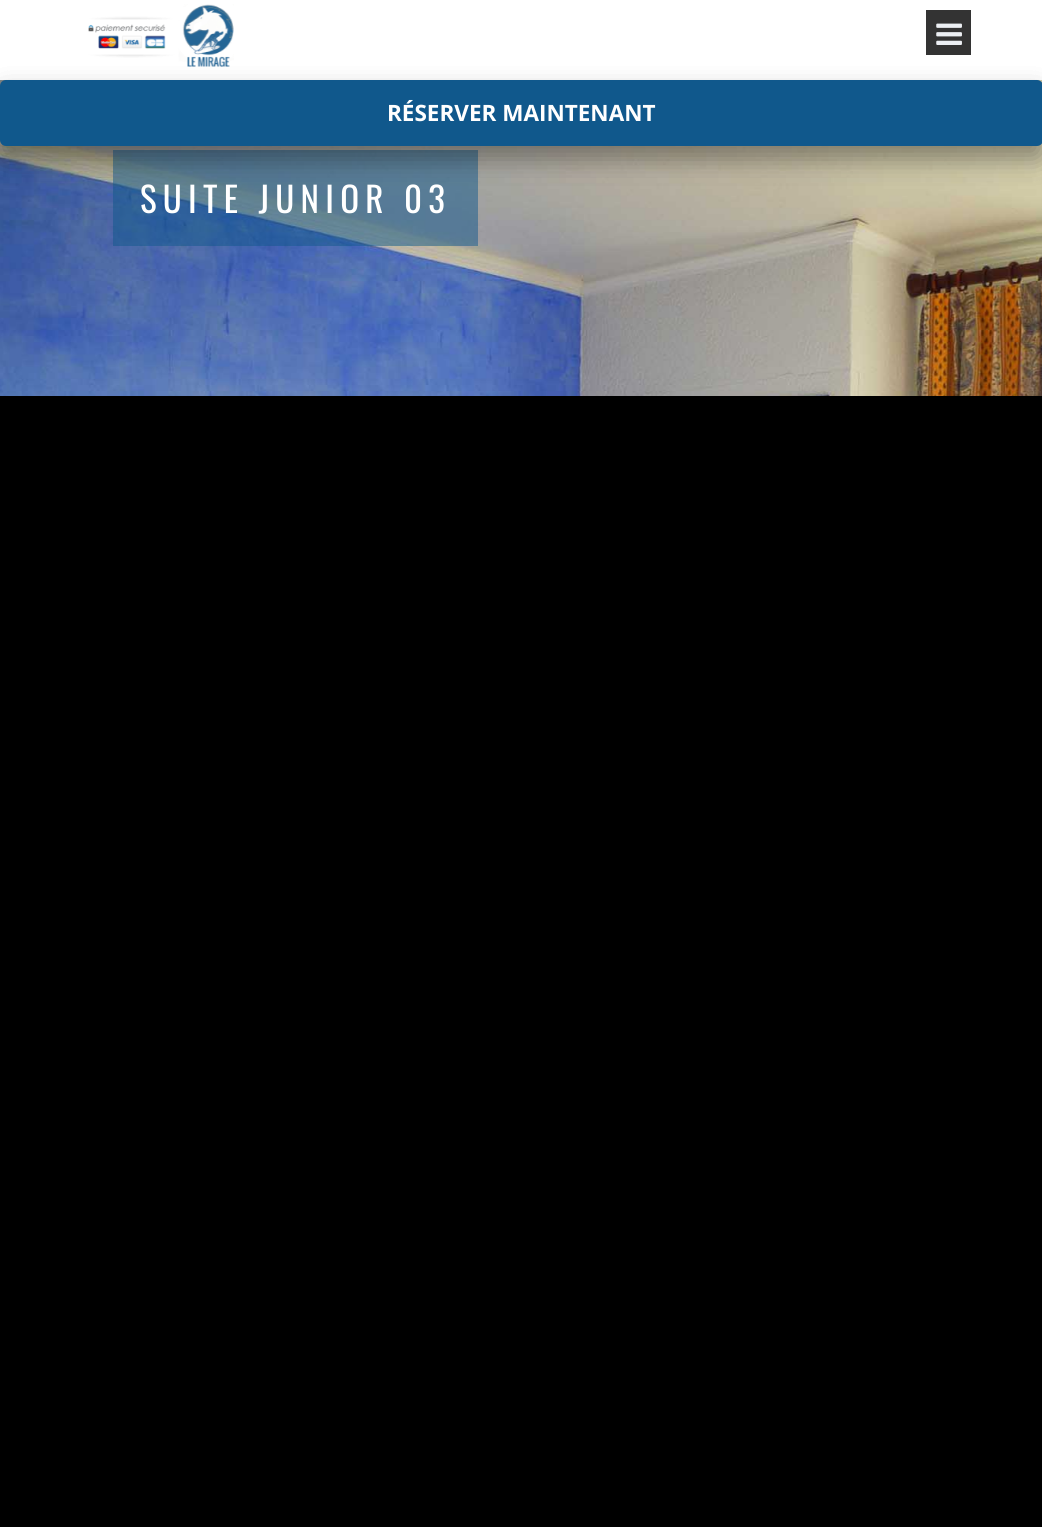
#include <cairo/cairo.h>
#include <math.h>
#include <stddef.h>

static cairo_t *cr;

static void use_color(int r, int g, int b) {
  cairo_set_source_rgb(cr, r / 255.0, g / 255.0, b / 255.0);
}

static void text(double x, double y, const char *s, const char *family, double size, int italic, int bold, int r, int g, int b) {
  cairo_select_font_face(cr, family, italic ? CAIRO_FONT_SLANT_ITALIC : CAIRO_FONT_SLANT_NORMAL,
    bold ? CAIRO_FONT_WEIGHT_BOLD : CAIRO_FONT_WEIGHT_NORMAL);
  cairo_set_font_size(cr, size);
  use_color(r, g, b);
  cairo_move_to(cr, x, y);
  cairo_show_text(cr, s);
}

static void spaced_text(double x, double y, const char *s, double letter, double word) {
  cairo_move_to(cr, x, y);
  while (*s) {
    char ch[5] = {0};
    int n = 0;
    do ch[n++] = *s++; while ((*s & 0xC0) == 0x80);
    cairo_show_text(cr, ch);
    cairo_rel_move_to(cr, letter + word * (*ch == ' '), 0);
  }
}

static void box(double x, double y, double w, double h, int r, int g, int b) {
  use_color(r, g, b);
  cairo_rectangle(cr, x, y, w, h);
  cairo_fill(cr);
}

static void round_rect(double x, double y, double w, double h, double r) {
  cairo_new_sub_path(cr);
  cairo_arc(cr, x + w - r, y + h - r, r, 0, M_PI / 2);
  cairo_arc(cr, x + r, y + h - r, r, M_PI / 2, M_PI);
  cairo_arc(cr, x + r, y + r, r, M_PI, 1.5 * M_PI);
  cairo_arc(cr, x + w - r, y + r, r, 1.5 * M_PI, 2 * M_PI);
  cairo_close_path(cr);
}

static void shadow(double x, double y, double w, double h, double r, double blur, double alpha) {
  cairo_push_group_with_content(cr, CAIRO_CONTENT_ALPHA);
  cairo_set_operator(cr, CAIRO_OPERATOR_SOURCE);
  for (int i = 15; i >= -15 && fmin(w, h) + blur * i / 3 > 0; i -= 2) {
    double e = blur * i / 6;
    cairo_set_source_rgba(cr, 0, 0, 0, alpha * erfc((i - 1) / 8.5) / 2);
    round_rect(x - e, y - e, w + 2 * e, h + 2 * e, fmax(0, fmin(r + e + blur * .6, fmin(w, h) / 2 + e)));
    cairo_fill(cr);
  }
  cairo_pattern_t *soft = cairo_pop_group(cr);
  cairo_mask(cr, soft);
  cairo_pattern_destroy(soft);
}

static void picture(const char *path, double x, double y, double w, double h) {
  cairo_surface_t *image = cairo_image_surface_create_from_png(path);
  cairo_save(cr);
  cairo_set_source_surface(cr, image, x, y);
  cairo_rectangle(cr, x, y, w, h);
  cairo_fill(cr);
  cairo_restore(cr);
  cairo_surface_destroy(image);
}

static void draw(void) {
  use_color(0, 0, 0);
  cairo_paint(cr);
  box(0, 0, 1042, 80, 255, 255, 255);
  picture("img_01.png", 88, 4, 146, 63);
  box(926, 10, 45, 45, 51, 51, 51);
  picture("img_02.png", 936, 23, 26, 22);
  picture("img_03.png", 0, 80, 1042, 316);
  cairo_set_source_rgba(cr, 0.063, 0.345, 0.549, 0.5);
  cairo_rectangle(cr, 113, 150, 365, 96);
  cairo_fill(cr);
  use_color(0, 0, 0);
  shadow(0, 93, 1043, 66, 6, 12.5, 0.19);
  shadow(0, 93, 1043, 66, 6, 12.5, 0.19);
  use_color(16, 88, 140);
  round_rect(0, 80, 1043, 66, 6);
  cairo_fill(cr);
  text(387, 121, "RÉSERVER MAINTENANT", "Open Sans", 22.5, 0, 1, 255, 255, 255);
  cairo_select_font_face(cr, "Oswald", CAIRO_FONT_SLANT_NORMAL, CAIRO_FONT_WEIGHT_NORMAL);
  cairo_set_font_size(cr, 35);
  spaced_text(140, 213, "SUITE JUNIOR 03", 6.25, 0);
}

int main(void) {
  cairo_surface_t *surface = cairo_image_surface_create(CAIRO_FORMAT_RGB24, 1042, 1527);
  cr = cairo_create(surface);
  cairo_font_options_t *options = cairo_font_options_create();
  cairo_font_options_set_hint_metrics(options, CAIRO_HINT_METRICS_OFF);
  cairo_font_options_set_hint_style(options, CAIRO_HINT_STYLE_NONE);
  cairo_set_font_options(cr, options);
  cairo_set_miter_limit(cr, 4);
  draw();
  cairo_surface_write_to_png(surface, "out.png");
  cairo_font_options_destroy(options);
  cairo_destroy(cr);
  cairo_surface_destroy(surface);
  return 0;
}
